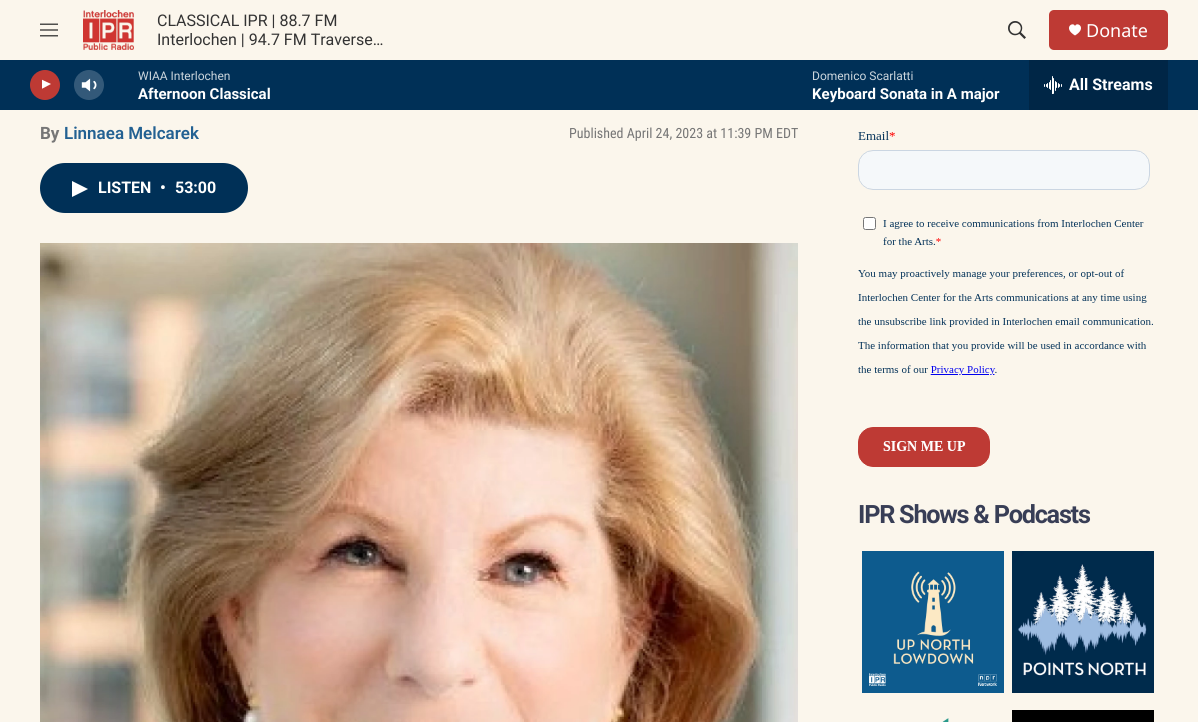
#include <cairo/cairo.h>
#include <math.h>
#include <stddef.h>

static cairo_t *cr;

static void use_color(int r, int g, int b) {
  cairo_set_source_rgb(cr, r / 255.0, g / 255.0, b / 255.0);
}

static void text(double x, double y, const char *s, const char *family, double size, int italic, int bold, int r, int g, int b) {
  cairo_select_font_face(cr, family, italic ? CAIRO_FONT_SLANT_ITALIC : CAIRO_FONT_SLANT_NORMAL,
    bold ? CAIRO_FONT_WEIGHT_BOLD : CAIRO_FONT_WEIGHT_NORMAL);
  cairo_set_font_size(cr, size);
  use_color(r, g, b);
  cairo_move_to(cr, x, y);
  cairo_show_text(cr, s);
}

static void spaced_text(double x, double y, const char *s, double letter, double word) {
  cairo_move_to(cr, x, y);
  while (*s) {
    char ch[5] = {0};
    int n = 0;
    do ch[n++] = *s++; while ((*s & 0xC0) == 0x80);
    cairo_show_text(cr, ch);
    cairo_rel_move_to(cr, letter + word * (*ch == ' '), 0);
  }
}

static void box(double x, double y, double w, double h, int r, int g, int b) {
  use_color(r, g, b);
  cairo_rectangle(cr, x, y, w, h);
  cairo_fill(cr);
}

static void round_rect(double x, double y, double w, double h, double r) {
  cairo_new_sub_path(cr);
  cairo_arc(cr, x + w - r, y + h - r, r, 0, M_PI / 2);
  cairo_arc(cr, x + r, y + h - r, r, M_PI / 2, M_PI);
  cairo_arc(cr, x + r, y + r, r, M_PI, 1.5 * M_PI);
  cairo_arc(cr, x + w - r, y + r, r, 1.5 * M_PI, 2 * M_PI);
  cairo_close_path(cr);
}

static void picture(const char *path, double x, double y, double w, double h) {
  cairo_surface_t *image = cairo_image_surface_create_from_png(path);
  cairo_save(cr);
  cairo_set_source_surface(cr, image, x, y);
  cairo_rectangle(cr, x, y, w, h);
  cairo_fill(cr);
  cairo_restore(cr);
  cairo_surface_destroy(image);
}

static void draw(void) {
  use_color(251, 246, 236);
  cairo_paint(cr);
  picture("img_01.png", 40, 23, 18, 14);
  picture("img_02.png", 83, 10, 51, 40);
  picture("img_03.png", 1008, 21, 18, 18);
  use_color(190, 58, 52);
  round_rect(1049, 10, 119, 40, 5);
  cairo_fill(cr);
  use_color(255, 255, 255);
  cairo_new_path(cr);
  cairo_move_to(cr, 1075, 26);
  cairo_curve_to(cr, 1073, 21, 1062.5, 28, 1075, 35.5);
  cairo_curve_to(cr, 1087.5, 28, 1077, 21, 1075, 26);
  cairo_close_path(cr);
  cairo_fill(cr);
  box(0, 60, 1198, 50, 0, 48, 87);
  use_color(190, 58, 52);
  cairo_arc(cr, 45, 85, 15, 0, 2 * M_PI);
  cairo_fill(cr);
  cairo_save(cr);
  cairo_rectangle(cr, 42, 78, 12, 15);
  cairo_clip(cr);
  use_color(255, 255, 255);
  cairo_new_path(cr);
  cairo_move_to(cr, 41.5, 79.5);
  cairo_line_to(cr, 51, 84);
  cairo_line_to(cr, 41.5, 89);
  cairo_close_path(cr);
  cairo_fill(cr);
  cairo_restore(cr);
  picture("img_04.png", 81, 78, 16, 14);
  cairo_set_source_rgba(cr, 1, 1, 1, 0.2);
  cairo_arc(cr, 89, 85, 15, 0, 2 * M_PI);
  cairo_fill(cr);
  box(1029, 60, 139, 50, 0, 38, 70);
  picture("img_05.png", 1044, 76, 18, 18);
  use_color(0, 48, 87);
  round_rect(40, 163, 208, 50, 25);
  cairo_fill(cr);
  use_color(255, 255, 255);
  cairo_new_path(cr);
  cairo_move_to(cr, 72, 181);
  cairo_line_to(cr, 88, 189);
  cairo_line_to(cr, 72, 197);
  cairo_close_path(cr);
  cairo_fill(cr);
  picture("img_06.png", 40, 243, 758, 479);
  picture("img_07.png", 858, 131, 295, 336);
  picture("img_08.png", 862, 551, 142, 142);
  picture("img_09.png", 1012, 551, 142, 142);
  picture("img_10.png", 942, 718, 7, 4);
  box(1012, 710, 142, 12, 0, 0, 0);
  text(157, 26, "CLASSICAL IPR | 88.7 FM", "Roboto", 16, 0, 0, 51, 51, 51);
  text(157, 45, "Interlochen | 94.7 FM Traverse…", "Roboto", 16, 0, 0, 51, 51, 51);
  text(1086, 37, "Donate", "Noto Sans", 18, 0, 0, 255, 255, 255);
  text(138, 80, "WIAA Interlochen", "Roboto", 12, 0, 0, 204, 214, 221);
  text(138, 99, "Afternoon Classical", "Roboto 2", 15, 0, 1, 255, 255, 255);
  text(812, 80, "Domenico Scarlatti", "Roboto", 12, 0, 0, 204, 214, 221);
  text(812, 99, "Keyboard Sonata in A major", "Roboto 2", 15, 0, 1, 255, 255, 255);
  text(1069, 90, "All Streams", "Roboto 2", 16, 0, 1, 255, 255, 255);
  text(40, 139, "By", "Roboto", 17, 0, 1, 118, 118, 118);
  text(64, 139, "Linnaea Melcarek", "Roboto SemiBold", 17, 0, 0, 35, 97, 146);
  text(569, 138, "Published April 24, 2023 at 11:39 PM EDT", "Roboto Condensed", 14, 0, 0, 118, 118, 118);
  text(98, 193, "LISTEN", "Roboto 2", 16, 0, 1, 255, 255, 255);
  text(160, 193, "•", "Roboto 2", 16, 0, 1, 255, 255, 255);
  text(175, 193, "53:00", "Roboto 2", 16, 0, 1, 255, 255, 255);
  cairo_select_font_face(cr, "Roboto", CAIRO_FONT_SLANT_NORMAL, CAIRO_FONT_WEIGHT_BOLD);
  cairo_set_font_size(cr, 25.25);
  use_color(56, 62, 86);
  spaced_text(858, 523, "IPR Shows & Podcasts", -1.25, 0);
}

int main(void) {
  cairo_surface_t *surface = cairo_image_surface_create(CAIRO_FORMAT_RGB24, 1198, 722);
  cr = cairo_create(surface);
  cairo_font_options_t *options = cairo_font_options_create();
  cairo_font_options_set_hint_metrics(options, CAIRO_HINT_METRICS_OFF);
  cairo_font_options_set_hint_style(options, CAIRO_HINT_STYLE_NONE);
  cairo_set_font_options(cr, options);
  cairo_set_miter_limit(cr, 4);
  draw();
  cairo_surface_write_to_png(surface, "out.png");
  cairo_font_options_destroy(options);
  cairo_destroy(cr);
  cairo_surface_destroy(surface);
  return 0;
}
